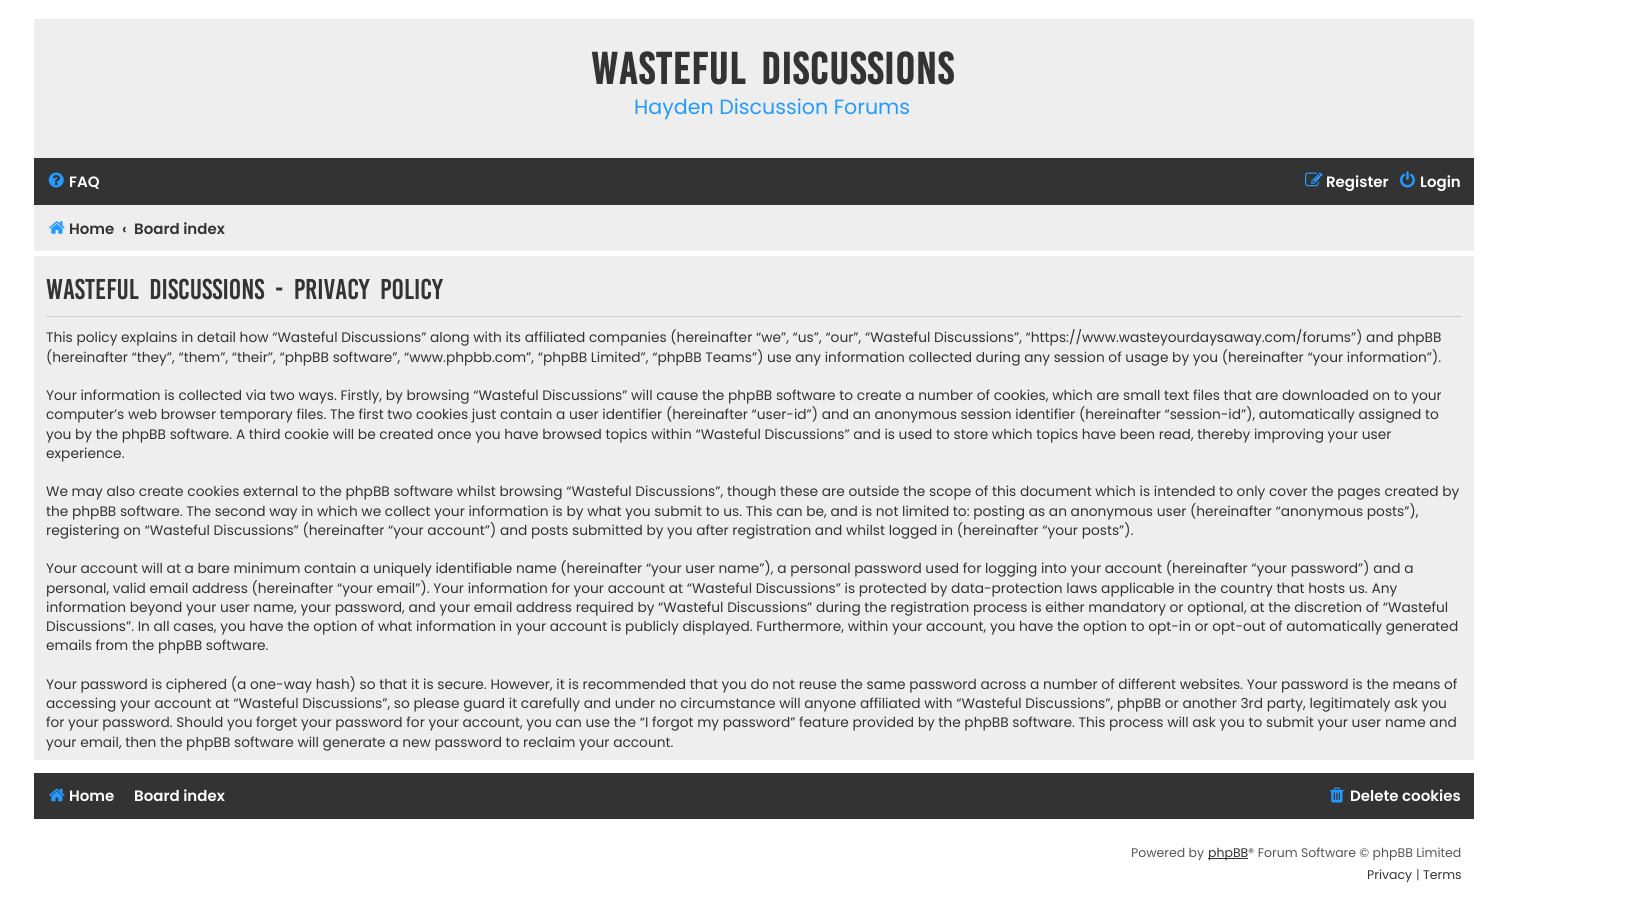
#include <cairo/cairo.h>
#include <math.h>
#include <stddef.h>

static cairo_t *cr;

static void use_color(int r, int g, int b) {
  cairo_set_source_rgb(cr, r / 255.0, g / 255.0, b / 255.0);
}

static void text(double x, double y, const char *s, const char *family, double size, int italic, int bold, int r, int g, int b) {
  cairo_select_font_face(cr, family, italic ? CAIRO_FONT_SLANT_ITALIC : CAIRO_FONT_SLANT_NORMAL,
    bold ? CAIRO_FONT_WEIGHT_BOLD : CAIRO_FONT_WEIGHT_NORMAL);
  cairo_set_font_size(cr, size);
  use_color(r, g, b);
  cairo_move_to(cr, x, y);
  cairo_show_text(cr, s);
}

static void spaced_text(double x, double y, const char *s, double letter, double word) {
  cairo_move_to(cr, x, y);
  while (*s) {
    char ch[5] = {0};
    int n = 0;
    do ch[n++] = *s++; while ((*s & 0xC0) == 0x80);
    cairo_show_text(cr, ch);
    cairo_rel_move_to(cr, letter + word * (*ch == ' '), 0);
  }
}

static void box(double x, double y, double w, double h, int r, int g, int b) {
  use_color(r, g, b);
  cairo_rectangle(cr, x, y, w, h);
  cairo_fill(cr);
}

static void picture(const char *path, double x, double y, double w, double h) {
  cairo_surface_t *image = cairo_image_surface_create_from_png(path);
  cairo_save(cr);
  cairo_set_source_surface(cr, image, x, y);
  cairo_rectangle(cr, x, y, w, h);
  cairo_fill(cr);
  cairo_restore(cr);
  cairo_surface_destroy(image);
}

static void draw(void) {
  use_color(255, 255, 255);
  cairo_paint(cr);
  box(34, 19, 1440, 139, 238, 238, 238);
  box(34, 158, 1440, 47, 51, 51, 51);
  picture("img_01.png", 48, 172, 16, 16);
  picture("img_02.png", 1305, 172, 18, 15);
  picture("img_03.png", 1400, 171, 15, 17);
  box(34, 205, 1440, 46, 238, 238, 238);
  picture("img_04.png", 49, 221, 16, 13);
  box(34, 256, 1440, 504, 238, 238, 238);
  box(46, 316, 1415, 1, 204, 204, 204);
  box(34, 773, 1440, 46, 51, 51, 51);
  picture("img_05.png", 49, 788, 16, 14);
  picture("img_06.png", 1330, 787, 14, 16);
  box(1208, 858, 40, 1, 51, 51, 51);
  cairo_select_font_face(cr, "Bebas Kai", CAIRO_FONT_SLANT_NORMAL, CAIRO_FONT_WEIGHT_BOLD);
  cairo_set_font_size(cr, 34.4);
  spaced_text(591, 84, "Wasteful Discussions", 1.25, 5);
  text(634, 114, "Hayden Discussion Forums", "Poppins", 20.6, 0, 0, 35, 154, 255);
  text(69, 187, "FAQ", "Poppins SemiBold", 15, 0, 0, 255, 255, 255);
  text(1326, 187, "Register", "Poppins SemiBold", 15, 0, 0, 255, 255, 255);
  text(1420, 187, "Login", "Poppins SemiBold", 15, 0, 0, 255, 255, 255);
  text(69, 234, "Home", "Poppins SemiBold", 15, 0, 0, 51, 51, 51);
  text(122, 234, "‹", "Poppins SemiBold", 15, 0, 0, 51, 51, 51);
  text(134, 234, "Board index", "Poppins SemiBold", 15, 0, 0, 51, 51, 51);
  cairo_select_font_face(cr, "Bebas Kai", CAIRO_FONT_SLANT_NORMAL, CAIRO_FONT_WEIGHT_NORMAL);
  cairo_set_font_size(cr, 22);
  spaced_text(46, 299, "Wasteful Discussions - Privacy policy", 0, 5);
  text(46, 342, "This policy explains in detail how “Wasteful Discussions” along with its affiliated companies (hereinafter “we”, “us”, “our”, “Wasteful Discussions”, “https://www.wasteyourdaysaway.com/forums”) and phpBB", "Poppins", 13.75, 0, 0, 51, 51, 51);
  text(46, 362, "(hereinafter “they”, “them”, “their”, “phpBB software”, “www.phpbb.com”, “phpBB Limited”, “phpBB Teams”) use any information collected during any session of usage by you (hereinafter “your information”).", "Poppins", 13.75, 0, 0, 51, 51, 51);
  text(46, 400, "Your information is collected via two ways. Firstly, by browsing “Wasteful Discussions” will cause the phpBB software to create a number of cookies, which are small text files that are downloaded on to your", "Poppins", 13.75, 0, 0, 51, 51, 51);
  text(46, 419, "computer’s web browser temporary files. The first two cookies just contain a user identifier (hereinafter “user-id”) and an anonymous session identifier (hereinafter “session-id”), automatically assigned to", "Poppins", 13.75, 0, 0, 51, 51, 51);
  text(46, 439, "you by the phpBB software. A third cookie will be created once you have browsed topics within “Wasteful Discussions” and is used to store which topics have been read, thereby improving your user", "Poppins", 13.75, 0, 0, 51, 51, 51);
  text(46, 458, "experience.", "Poppins", 13.75, 0, 0, 51, 51, 51);
  text(46, 496, "We may also create cookies external to the phpBB software whilst browsing “Wasteful Discussions”, though these are outside the scope of this document which is intended to only cover the pages created by", "Poppins", 13.75, 0, 0, 51, 51, 51);
  text(46, 516, "the phpBB software. The second way in which we collect your information is by what you submit to us. This can be, and is not limited to: posting as an anonymous user (hereinafter “anonymous posts”),", "Poppins", 13.75, 0, 0, 51, 51, 51);
  text(46, 535, "registering on “Wasteful Discussions” (hereinafter “your account”) and posts submitted by you after registration and whilst logged in (hereinafter “your posts”).", "Poppins", 13.75, 0, 0, 51, 51, 51);
  text(46, 573, "Your account will at a bare minimum contain a uniquely identifiable name (hereinafter “your user name”), a personal password used for logging into your account (hereinafter “your password”) and a", "Poppins", 13.75, 0, 0, 51, 51, 51);
  text(46, 593, "personal, valid email address (hereinafter “your email”). Your information for your account at “Wasteful Discussions” is protected by data-protection laws applicable in the country that hosts us. Any", "Poppins", 13.75, 0, 0, 51, 51, 51);
  text(46, 612, "information beyond your user name, your password, and your email address required by “Wasteful Discussions” during the registration process is either mandatory or optional, at the discretion of “Wasteful", "Poppins", 13.75, 0, 0, 51, 51, 51);
  text(46, 631, "Discussions”. In all cases, you have the option of what information in your account is publicly displayed. Furthermore, within your account, you have the option to opt-in or opt-out of automatically generated", "Poppins", 13.75, 0, 0, 51, 51, 51);
  text(46, 650, "emails from the phpBB software.", "Poppins", 13.75, 0, 0, 51, 51, 51);
  text(46, 689, "Your password is ciphered (a one-way hash) so that it is secure. However, it is recommended that you do not reuse the same password across a number of different websites. Your password is the means of", "Poppins", 13.75, 0, 0, 51, 51, 51);
  text(46, 708, "accessing your account at “Wasteful Discussions”, so please guard it carefully and under no circumstance will anyone affiliated with “Wasteful Discussions”, phpBB or another 3rd party, legitimately ask you", "Poppins", 13.75, 0, 0, 51, 51, 51);
  text(46, 727, "for your password. Should you forget your password for your account, you can use the “I forgot my password” feature provided by the phpBB software. This process will ask you to submit your user name and", "Poppins", 13.75, 0, 0, 51, 51, 51);
  text(46, 747, "your email, then the phpBB software will generate a new password to reclaim your account.", "Poppins", 13.75, 0, 0, 51, 51, 51);
  text(69, 801, "Home", "Poppins SemiBold", 15, 0, 0, 255, 255, 255);
  text(134, 801, "Board index", "Poppins SemiBold", 15, 0, 0, 255, 255, 255);
  text(1350, 801, "Delete cookies", "Poppins SemiBold", 15, 0, 0, 255, 255, 255);
  text(1131, 857, "Powered by", "Poppins", 12.5, 0, 0, 85, 85, 85);
  text(1208, 857, "phpBB", "Poppins", 12.5, 0, 0, 51, 51, 51);
  text(1248, 857, "® Forum Software © phpBB Limited", "Poppins", 12.5, 0, 0, 85, 85, 85);
  text(1367, 879, "Privacy", "Poppins", 12.5, 0, 0, 51, 51, 51);
  text(1416, 879, "|", "Poppins", 12.5, 0, 0, 85, 85, 85);
  text(1423, 879, "Terms", "Poppins", 12.5, 0, 0, 51, 51, 51);
}

int main(void) {
  cairo_surface_t *surface = cairo_image_surface_create(CAIRO_FORMAT_RGB24, 1641, 922);
  cr = cairo_create(surface);
  cairo_font_options_t *options = cairo_font_options_create();
  cairo_font_options_set_hint_metrics(options, CAIRO_HINT_METRICS_OFF);
  cairo_font_options_set_hint_style(options, CAIRO_HINT_STYLE_NONE);
  cairo_set_font_options(cr, options);
  cairo_set_miter_limit(cr, 4);
  draw();
  cairo_surface_write_to_png(surface, "out.png");
  cairo_font_options_destroy(options);
  cairo_destroy(cr);
  cairo_surface_destroy(surface);
  return 0;
}
